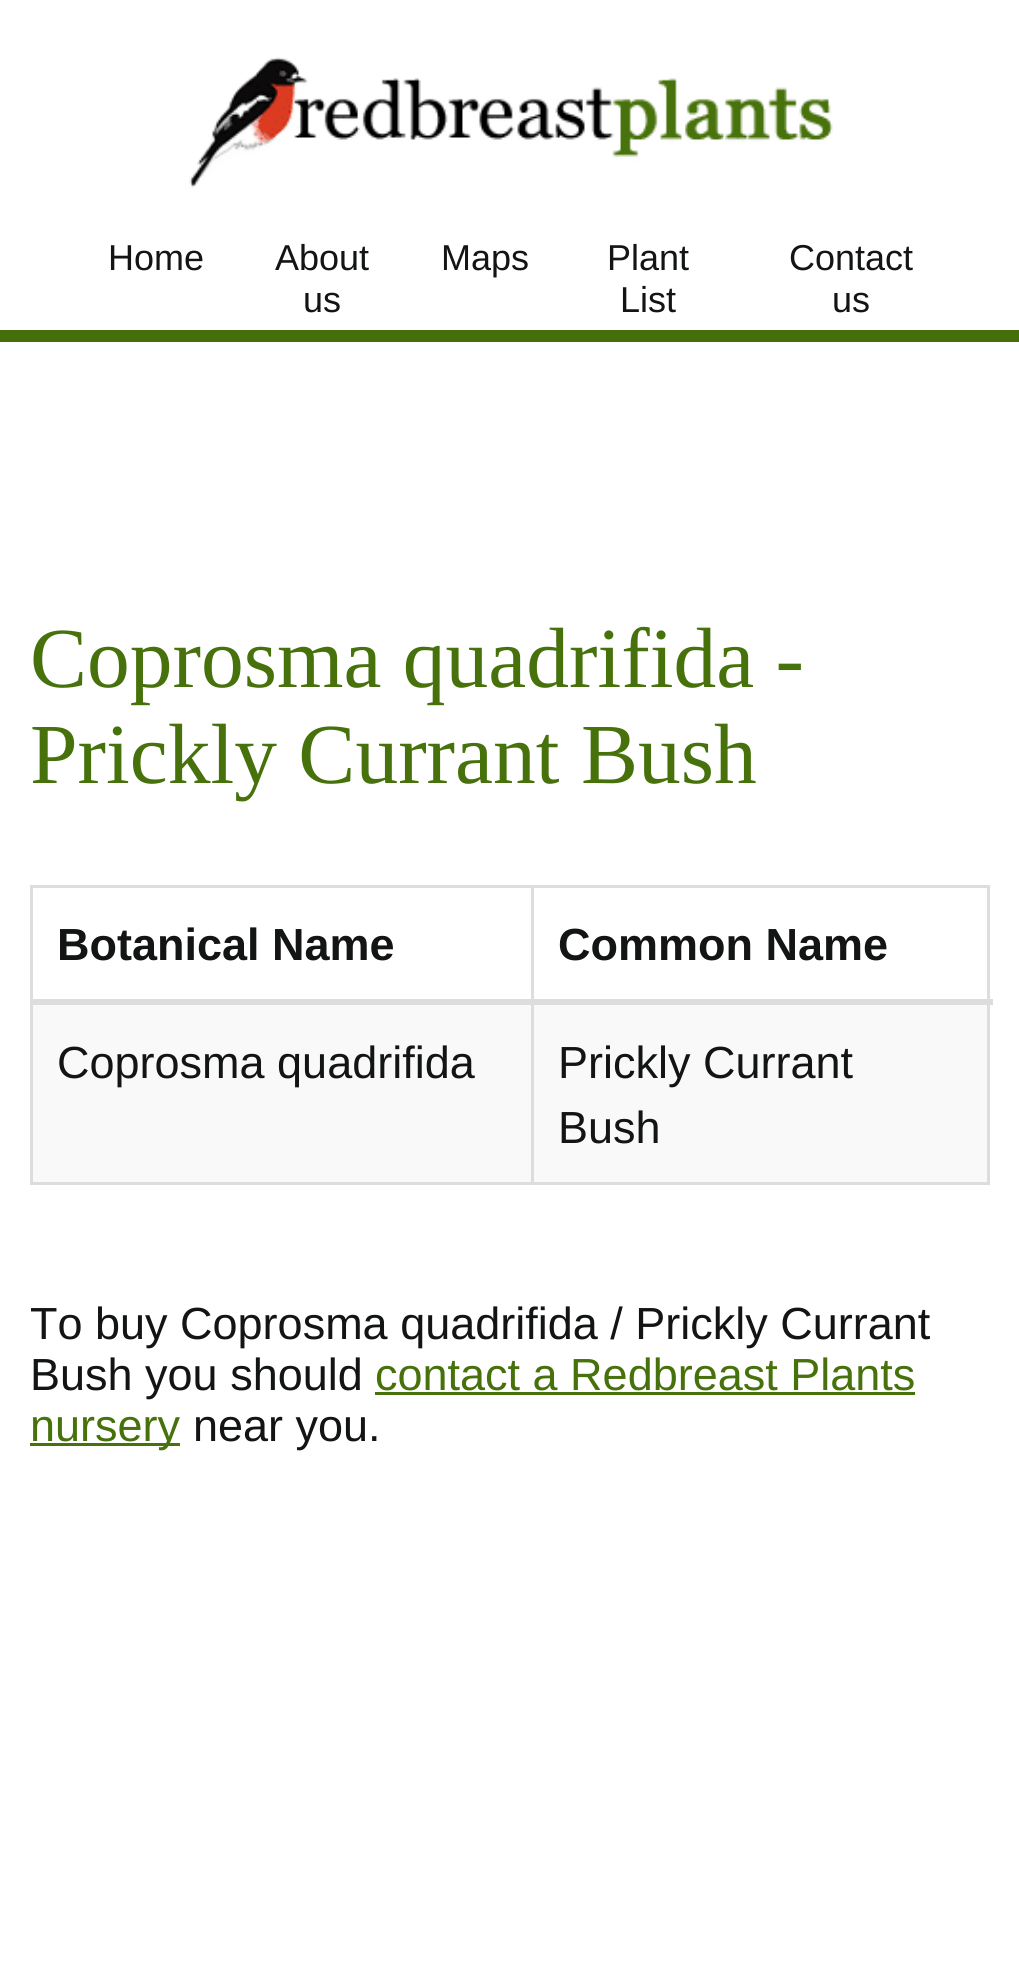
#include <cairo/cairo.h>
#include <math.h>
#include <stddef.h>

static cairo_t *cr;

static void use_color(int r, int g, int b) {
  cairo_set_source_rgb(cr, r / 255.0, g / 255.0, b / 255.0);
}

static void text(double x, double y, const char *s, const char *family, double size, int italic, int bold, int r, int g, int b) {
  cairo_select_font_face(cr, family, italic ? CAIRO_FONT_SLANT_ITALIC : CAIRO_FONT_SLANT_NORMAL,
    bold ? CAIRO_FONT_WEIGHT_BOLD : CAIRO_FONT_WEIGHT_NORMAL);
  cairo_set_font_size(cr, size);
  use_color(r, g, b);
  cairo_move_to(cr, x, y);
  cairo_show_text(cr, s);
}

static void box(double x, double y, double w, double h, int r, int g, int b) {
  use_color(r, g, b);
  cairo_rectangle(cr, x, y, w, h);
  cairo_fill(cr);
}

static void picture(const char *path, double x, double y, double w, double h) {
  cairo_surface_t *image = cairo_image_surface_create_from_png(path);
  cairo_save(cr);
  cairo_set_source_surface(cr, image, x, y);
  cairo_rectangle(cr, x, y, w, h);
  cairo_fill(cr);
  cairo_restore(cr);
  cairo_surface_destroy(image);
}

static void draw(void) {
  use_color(255, 255, 255);
  cairo_paint(cr);
  picture("img_01.png", 189, 57, 644, 131);
  box(0, 330, 1019, 12, 68, 111, 11);
  box(30, 885, 960, 3, 221, 221, 221);
  box(987, 885, 3, 300, 221, 221, 221);
  box(30, 1182, 960, 3, 221, 221, 221);
  box(30, 885, 3, 300, 221, 221, 221);
  box(33, 1005, 954, 177, 249, 249, 249);
  box(531, 885, 3, 300, 221, 221, 221);
  box(30, 999, 963, 6, 221, 221, 221);
  box(375, 1392, 540, 3, 70, 113, 11);
  box(30, 1443, 150, 3, 70, 113, 11);
  text(108, 270, "Home", "Liberation Sans", 36, 0, 0, 19, 20, 20);
  text(275, 270, "About", "Liberation Sans", 36, 0, 0, 19, 20, 20);
  text(303, 312, "us", "Liberation Sans", 36, 0, 0, 19, 20, 20);
  text(441, 270, "Maps", "Liberation Sans", 36, 0, 0, 19, 20, 20);
  text(607, 270, "Plant", "Liberation Sans", 36, 0, 0, 19, 20, 20);
  text(620, 312, "List", "Liberation Sans", 36, 0, 0, 19, 20, 20);
  text(789, 270, "Contact", "Liberation Sans", 36, 0, 0, 19, 20, 20);
  text(832, 312, "us", "Liberation Sans", 36, 0, 0, 19, 20, 20);
  text(30, 687, "Coprosma quadrifida -", "Liberation Serif", 85.5, 0, 0, 70, 113, 11);
  text(30, 783, "Prickly Currant Bush", "Liberation Serif", 85.5, 0, 0, 70, 113, 11);
  text(57, 960, "Botanical Name", "Liberation Sans", 45, 0, 1, 19, 20, 20);
  text(558, 960, "Common Name", "Liberation Sans", 45, 0, 1, 19, 20, 20);
  text(57, 1078, "Coprosma quadrifida", "Liberation Sans", 45, 0, 0, 19, 20, 20);
  text(558, 1078, "Prickly Currant", "Liberation Sans", 45, 0, 0, 19, 20, 20);
  text(558, 1143, "Bush", "Liberation Sans", 45, 0, 0, 19, 20, 20);
  text(30, 1339, "To buy Coprosma quadrifida / Prickly Currant", "Liberation Sans", 45, 0, 0, 19, 20, 20);
  text(30, 1390, "Bush you should", "Liberation Sans", 45, 0, 0, 19, 20, 20);
  text(375, 1390, "contact a Redbreast Plants", "Liberation Sans", 45, 0, 0, 70, 113, 11);
  text(30, 1441, "nursery", "Liberation Sans", 45, 0, 0, 70, 113, 11);
  text(193, 1441, "near you.", "Liberation Sans", 45, 0, 0, 19, 20, 20);
}

int main(void) {
  cairo_surface_t *surface = cairo_image_surface_create(CAIRO_FORMAT_RGB24, 1019, 1980);
  cr = cairo_create(surface);
  cairo_font_options_t *options = cairo_font_options_create();
  cairo_font_options_set_hint_metrics(options, CAIRO_HINT_METRICS_OFF);
  cairo_font_options_set_hint_style(options, CAIRO_HINT_STYLE_NONE);
  cairo_set_font_options(cr, options);
  cairo_set_miter_limit(cr, 4);
  draw();
  cairo_surface_write_to_png(surface, "out.png");
  cairo_font_options_destroy(options);
  cairo_destroy(cr);
  cairo_surface_destroy(surface);
  return 0;
}
